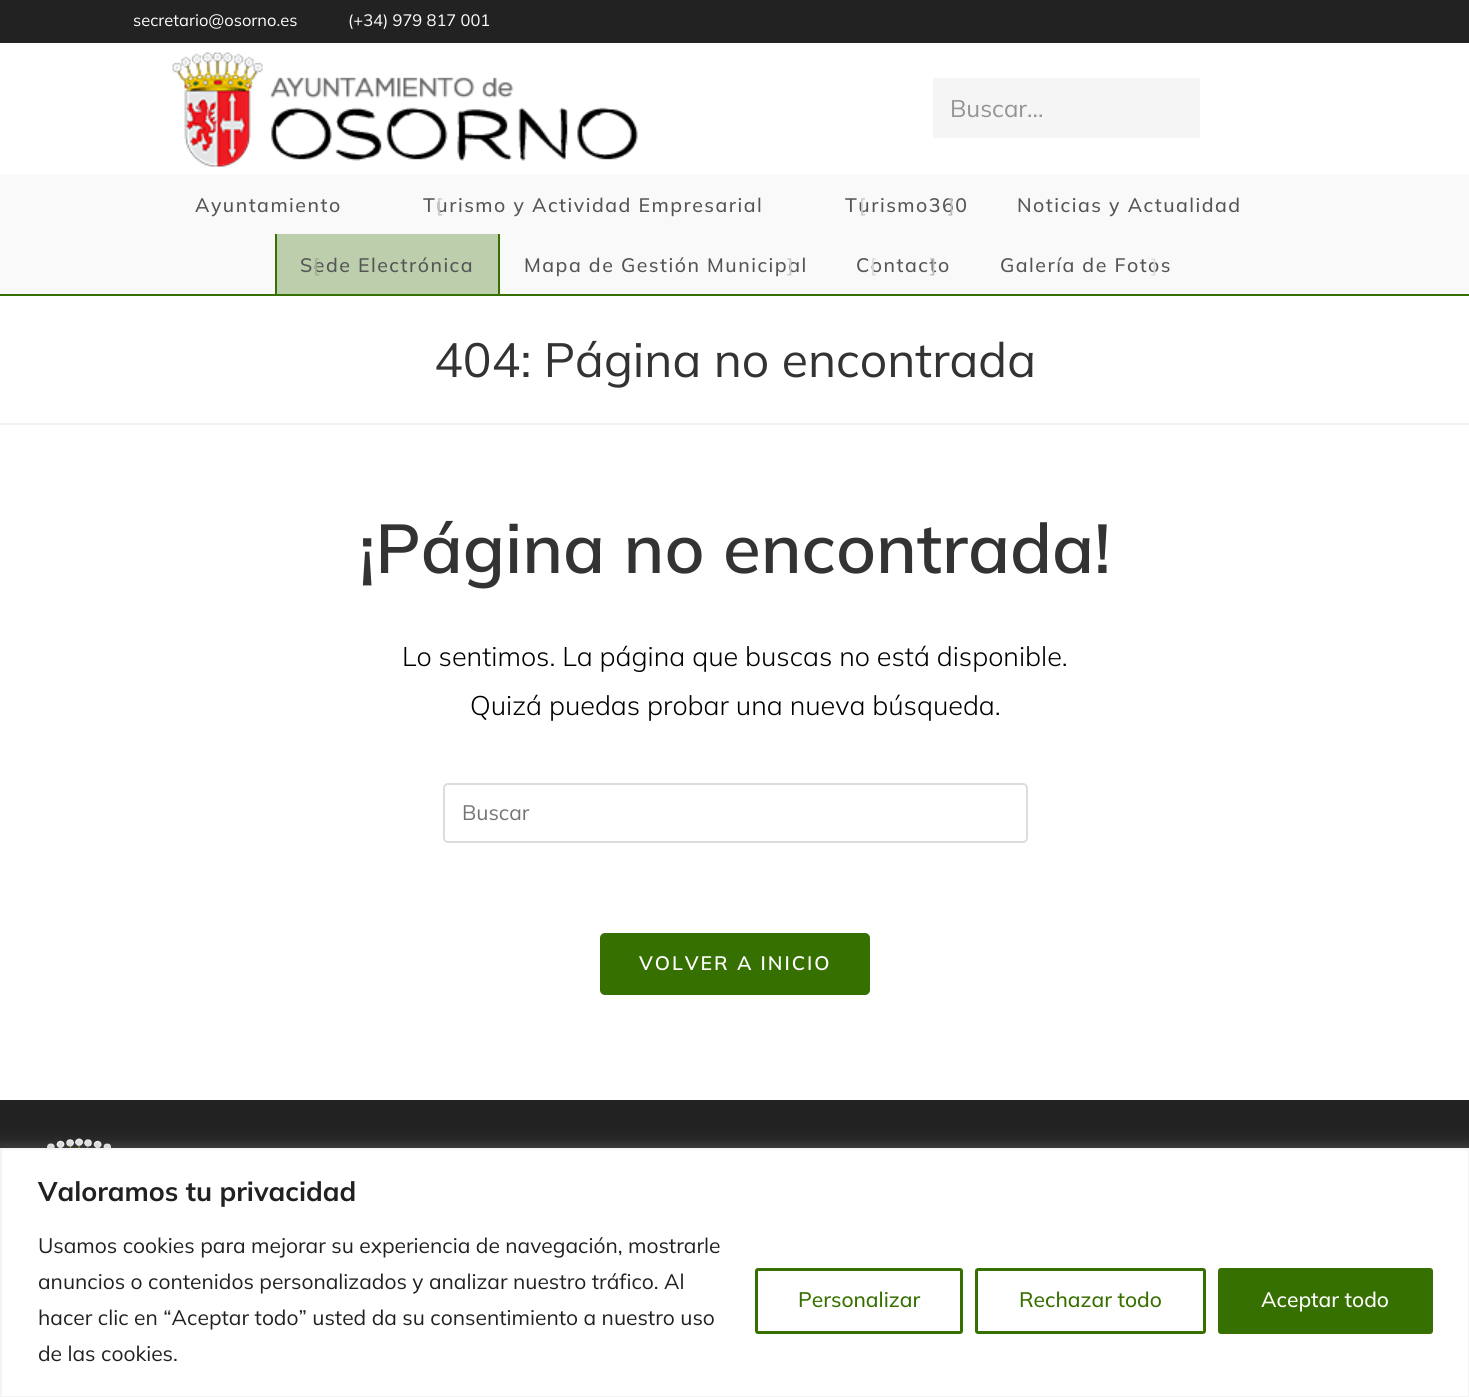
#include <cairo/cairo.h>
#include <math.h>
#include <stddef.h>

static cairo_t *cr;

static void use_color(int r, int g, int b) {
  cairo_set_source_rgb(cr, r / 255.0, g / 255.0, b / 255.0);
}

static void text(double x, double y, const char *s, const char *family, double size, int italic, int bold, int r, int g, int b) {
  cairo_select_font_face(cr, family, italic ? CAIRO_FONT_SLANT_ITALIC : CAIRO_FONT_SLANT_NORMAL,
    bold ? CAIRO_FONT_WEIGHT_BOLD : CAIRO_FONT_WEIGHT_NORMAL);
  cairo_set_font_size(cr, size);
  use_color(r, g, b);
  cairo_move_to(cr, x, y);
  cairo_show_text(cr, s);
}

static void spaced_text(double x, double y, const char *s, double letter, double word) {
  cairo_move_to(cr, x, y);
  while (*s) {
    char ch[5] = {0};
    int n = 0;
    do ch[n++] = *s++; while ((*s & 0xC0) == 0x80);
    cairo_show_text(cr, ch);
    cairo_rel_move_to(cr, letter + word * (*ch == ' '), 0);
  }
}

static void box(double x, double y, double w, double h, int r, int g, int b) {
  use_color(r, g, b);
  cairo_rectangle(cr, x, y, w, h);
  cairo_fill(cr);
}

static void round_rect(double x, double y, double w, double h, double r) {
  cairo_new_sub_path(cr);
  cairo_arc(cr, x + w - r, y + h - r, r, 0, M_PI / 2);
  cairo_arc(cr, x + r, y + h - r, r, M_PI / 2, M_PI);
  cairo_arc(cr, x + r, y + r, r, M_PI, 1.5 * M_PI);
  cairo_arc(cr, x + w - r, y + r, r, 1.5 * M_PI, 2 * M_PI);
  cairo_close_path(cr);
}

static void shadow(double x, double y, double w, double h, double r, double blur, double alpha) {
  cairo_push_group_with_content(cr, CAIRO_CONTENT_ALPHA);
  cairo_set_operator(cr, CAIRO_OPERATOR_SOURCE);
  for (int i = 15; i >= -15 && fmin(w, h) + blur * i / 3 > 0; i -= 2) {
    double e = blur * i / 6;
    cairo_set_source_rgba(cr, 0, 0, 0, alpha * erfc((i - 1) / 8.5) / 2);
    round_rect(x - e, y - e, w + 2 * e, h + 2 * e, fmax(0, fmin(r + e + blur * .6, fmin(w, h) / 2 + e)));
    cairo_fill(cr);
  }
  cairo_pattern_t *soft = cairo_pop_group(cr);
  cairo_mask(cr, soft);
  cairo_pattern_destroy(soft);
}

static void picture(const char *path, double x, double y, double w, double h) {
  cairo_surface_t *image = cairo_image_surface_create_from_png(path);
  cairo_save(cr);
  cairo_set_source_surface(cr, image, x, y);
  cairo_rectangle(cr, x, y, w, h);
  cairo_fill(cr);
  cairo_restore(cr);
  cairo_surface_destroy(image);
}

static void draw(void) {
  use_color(255, 255, 255);
  cairo_paint(cr);
  box(0, 0, 1469, 43, 34, 34, 34);
  box(0, 294, 1469, 2, 54, 112, 0);
  picture("img_01.png", 172, 52, 466, 115);
  box(933, 78, 267, 60, 245, 245, 245);
  box(0, 174, 1469, 120, 249, 249, 249);
  box(277, 234, 221, 60, 188, 206, 171);
  box(498, 234, 2, 60, 54, 112, 0);
  box(275, 234, 2, 60, 54, 112, 0);
  box(0, 423, 1469, 2, 241, 241, 241);
  round_rect(444, 784, 583, 58, 4);
  use_color(221, 221, 221);
  cairo_stroke(cr);
  use_color(54, 112, 0);
  round_rect(600, 933, 270, 62, 5);
  cairo_fill(cr);
  box(0, 1100, 1469, 48, 34, 34, 34);
  picture("img_02.png", 41, 1138, 76, 10);
  use_color(172, 171, 171);
  shadow(0, 1146, 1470, 251, 0, 7.5, 0.3);
  use_color(255, 255, 255);
  cairo_rectangle(cr, 1, 1149, 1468, 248);
  cairo_fill_preserve(cr);
  use_color(244, 244, 244);
  cairo_stroke(cr);
  round_rect(756.5, 1269.5, 205, 63, 1.5);
  use_color(54, 112, 0);
  cairo_set_line_width(cr, 3);
  cairo_stroke(cr);
  round_rect(976.5, 1269.5, 228, 63, 1.5);
  cairo_stroke(cr);
  round_rect(1219.5, 1269.5, 212, 63, 1.5);
  cairo_fill_preserve(cr);
  cairo_stroke(cr);
  text(133, 26, "secretario@osorno.es", "Mulish", 16.5, 0, 0, 255, 255, 255);
  text(348, 26, "(+34) 979 817 001", "Mulish", 16.5, 0, 0, 255, 255, 255);
  text(950, 117, "Buscar...", "Mulish", 24, 0, 0, 148, 148, 148);
  cairo_select_font_face(cr, "Mulish Medium", CAIRO_FONT_SLANT_NORMAL, CAIRO_FONT_WEIGHT_NORMAL);
  cairo_set_font_size(cr, 19.5);
  use_color(85, 85, 85);
  spaced_text(195, 212, "Ayuntamiento", 1.5, 0);
  spaced_text(423, 212, "Turismo y Actividad Empresarial", 1.5, 0);
  use_color(202, 202, 202);
  spaced_text(436, 212, "[", 1.5, 0);
  use_color(85, 85, 85);
  spaced_text(845, 212, "Turismo360", 1.5, 0);
  use_color(202, 202, 202);
  spaced_text(859, 212, "[", 1.5, 0);
  use_color(188, 188, 188);
  spaced_text(948, 212, "]", 1.5, 0);
  use_color(85, 85, 85);
  spaced_text(1017, 212, "Noticias y Actualidad", 1.5, 0);
  spaced_text(300, 272, "Sede Electrónica", 1.5, 0);
  use_color(162, 176, 150);
  spaced_text(313, 272, "[", 1.5, 0);
  use_color(85, 85, 85);
  spaced_text(524, 272, "Mapa de Gestión Municipal", 1.5, 0);
  use_color(202, 202, 202);
  spaced_text(787, 272, "]", 1.5, 0);
  use_color(85, 85, 85);
  spaced_text(856, 272, "Contacto", 1.5, 0);
  use_color(220, 220, 220);
  spaced_text(870, 272, "[", 1.5, 0);
  use_color(188, 188, 188);
  spaced_text(930, 272, "]", 1.5, 0);
  use_color(85, 85, 85);
  spaced_text(1000, 272, "Galería de Fotos", 1.5, 0);
  use_color(220, 220, 220);
  spaced_text(1151, 272, "]", 1.5, 0);
  text(434, 377, "404: Página no encontrada", "Mulish", 48, 0, 0, 51, 51, 51);
  text(359, 573, "¡Página no encontrada!", "Mulish SemiBold", 69, 0, 0, 51, 51, 51);
  text(402, 666, "Lo sentimos. La página que buscas no está disponible.", "Mulish Light", 27, 0, 0, 0, 0, 0);
  text(470, 715, "Quizá puedas probar una nueva búsqueda.", "Mulish Light", 27, 0, 0, 0, 0, 0);
  text(462, 820, "Buscar", "Mulish", 21, 0, 0, 117, 117, 117);
  cairo_select_font_face(cr, "Mulish SemiBold", CAIRO_FONT_SLANT_NORMAL, CAIRO_FONT_WEIGHT_NORMAL);
  cairo_set_font_size(cr, 19.5);
  use_color(255, 255, 255);
  spaced_text(639, 970, "VOLVER A INICIO", 2, 0);
  text(38, 1201, "Valoramos tu privacidad", "Mulish", 27, 0, 1, 33, 33, 33);
  text(38, 1253, "Usamos cookies para mejorar su experiencia de navegación, mostrarle", "Mulish", 21, 0, 0, 33, 33, 33);
  text(38, 1289, "anuncios o contenidos personalizados y analizar nuestro tráfico. Al", "Mulish", 21, 0, 0, 33, 33, 33);
  text(38, 1325, "hacer clic en “Aceptar todo” usted da su consentimiento a nuestro uso", "Mulish", 21, 0, 0, 33, 33, 33);
  text(38, 1361, "de las cookies.", "Mulish", 21, 0, 0, 33, 33, 33);
  text(798, 1307, "Personalizar", "Mulish Medium", 21, 0, 0, 54, 112, 0);
  text(1019, 1307, "Rechazar todo", "Mulish Medium", 21, 0, 0, 54, 112, 0);
  text(1261, 1307, "Aceptar todo", "Mulish Medium", 21, 0, 0, 255, 255, 255);
}

int main(void) {
  cairo_surface_t *surface = cairo_image_surface_create(CAIRO_FORMAT_RGB24, 1469, 1397);
  cr = cairo_create(surface);
  cairo_font_options_t *options = cairo_font_options_create();
  cairo_font_options_set_hint_metrics(options, CAIRO_HINT_METRICS_OFF);
  cairo_font_options_set_hint_style(options, CAIRO_HINT_STYLE_NONE);
  cairo_set_font_options(cr, options);
  cairo_set_miter_limit(cr, 4);
  draw();
  cairo_surface_write_to_png(surface, "out.png");
  cairo_font_options_destroy(options);
  cairo_destroy(cr);
  cairo_surface_destroy(surface);
  return 0;
}
